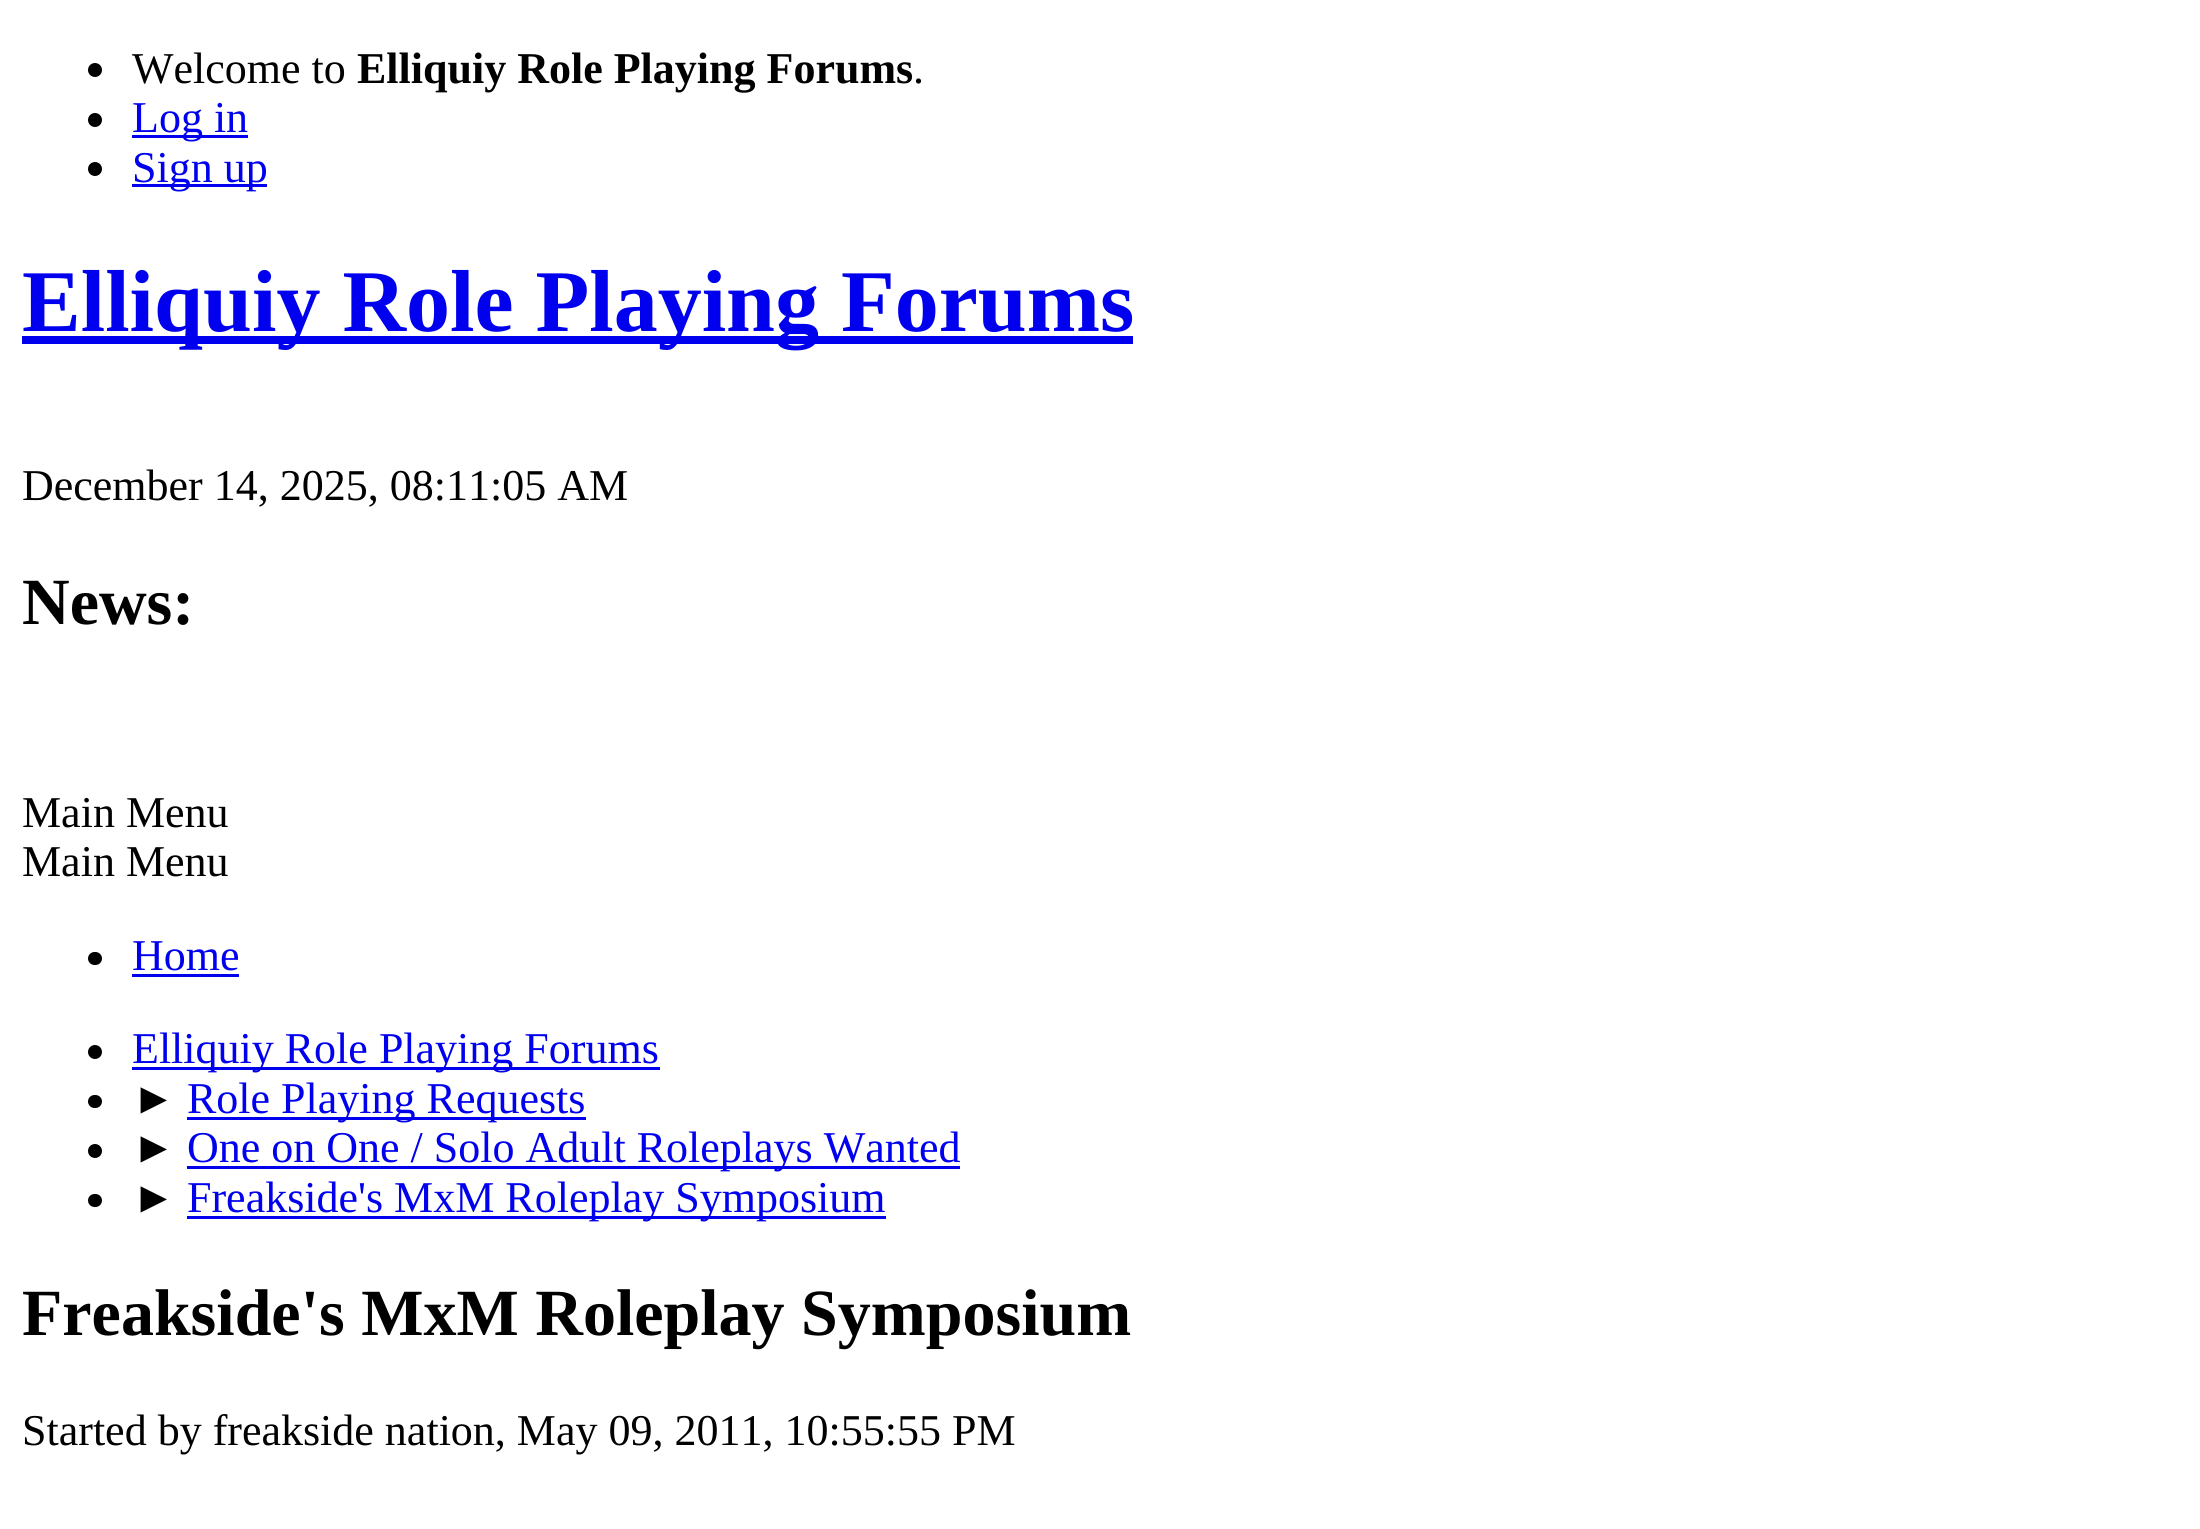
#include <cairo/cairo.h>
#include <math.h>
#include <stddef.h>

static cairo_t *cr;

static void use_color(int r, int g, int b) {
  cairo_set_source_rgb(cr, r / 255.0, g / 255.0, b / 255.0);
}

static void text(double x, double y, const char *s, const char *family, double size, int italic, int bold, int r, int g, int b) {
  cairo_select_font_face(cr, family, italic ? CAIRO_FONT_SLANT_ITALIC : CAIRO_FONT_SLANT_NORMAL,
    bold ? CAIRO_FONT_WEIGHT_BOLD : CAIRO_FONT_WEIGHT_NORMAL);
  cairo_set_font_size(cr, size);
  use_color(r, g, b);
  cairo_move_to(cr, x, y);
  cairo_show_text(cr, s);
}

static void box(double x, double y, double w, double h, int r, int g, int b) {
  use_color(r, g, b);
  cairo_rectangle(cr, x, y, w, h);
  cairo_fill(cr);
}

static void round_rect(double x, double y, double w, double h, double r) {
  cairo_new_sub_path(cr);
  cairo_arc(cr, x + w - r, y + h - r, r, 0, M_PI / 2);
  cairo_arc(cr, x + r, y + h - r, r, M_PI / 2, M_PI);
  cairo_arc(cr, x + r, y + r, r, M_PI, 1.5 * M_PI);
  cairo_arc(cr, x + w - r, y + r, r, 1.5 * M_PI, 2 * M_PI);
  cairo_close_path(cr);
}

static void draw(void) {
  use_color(255, 255, 255);
  cairo_paint(cr);
  use_color(0, 0, 0);
  cairo_arc(cr, 95, 70, 7, 0, 2 * M_PI);
  cairo_fill(cr);
  cairo_arc(cr, 95, 120, 7, 0, 2 * M_PI);
  cairo_fill(cr);
  box(132, 135, 116, 3, 0, 0, 238);
  use_color(0, 0, 0);
  cairo_arc(cr, 95, 169, 7, 0, 2 * M_PI);
  cairo_fill(cr);
  box(132, 184, 135, 3, 0, 0, 238);
  box(22, 336, 1111, 8, 0, 0, 238);
  use_color(0, 0, 0);
  round_rect(88, 952, 14, 13, 6.5);
  cairo_fill(cr);
  box(132, 974, 107, 3, 0, 0, 238);
  use_color(0, 0, 0);
  cairo_arc(cr, 95, 1052, 7, 0, 2 * M_PI);
  cairo_fill(cr);
  box(132, 1067, 528, 3, 0, 0, 238);
  use_color(0, 0, 0);
  round_rect(88, 1095, 14, 13, 6.5);
  cairo_fill(cr);
  box(187, 1117, 399, 3, 0, 0, 238);
  use_color(0, 0, 0);
  cairo_arc(cr, 95, 1151, 7, 0, 2 * M_PI);
  cairo_fill(cr);
  box(187, 1166, 773, 3, 0, 0, 238);
  use_color(0, 0, 0);
  round_rect(88, 1194, 14, 13, 6.5);
  cairo_fill(cr);
  box(187, 1216, 699, 3, 0, 0, 238);
  text(132, 83, "Welcome to", "Liberation Serif", 44, 0, 0, 0, 0, 0);
  text(357, 83, "Elliquiy Role Playing Forums", "Liberation Serif", 44, 0, 1, 0, 0, 0);
  text(913, 83, ".", "Liberation Serif", 44, 0, 0, 0, 0, 0);
  text(132, 132, "Log in", "Liberation Serif", 44, 0, 0, 0, 0, 238);
  text(132, 182, "Sign up", "Liberation Serif", 44, 0, 0, 0, 0, 238);
  text(22, 331, "Elliquiy Role Playing Forums", "Liberation Serif", 88, 0, 1, 0, 0, 238);
  text(22, 500, "December 14, 2025, 08:11:05 AM", "Liberation Serif", 44, 0, 0, 0, 0, 0);
  text(22, 624, "News:", "Liberation Serif", 66, 0, 1, 0, 0, 0);
  text(22, 827, "Main Menu", "Liberation Serif", 44, 0, 0, 0, 0, 0);
  text(22, 876, "Main Menu", "Liberation Serif", 44, 0, 0, 0, 0, 0);
  text(132, 970, "Home", "Liberation Serif", 44, 0, 0, 0, 0, 238);
  text(132, 1063, "Elliquiy Role Playing Forums", "Liberation Serif", 44, 0, 0, 0, 0, 238);
  text(132, 1113, "►", "Liberation Serif", 44, 0, 0, 0, 0, 0);
  text(187, 1113, "Role Playing Requests", "Liberation Serif", 44, 0, 0, 0, 0, 238);
  text(132, 1162, "►", "Liberation Serif", 44, 0, 0, 0, 0, 0);
  text(187, 1162, "One on One / Solo Adult Roleplays Wanted", "Liberation Serif", 44, 0, 0, 0, 0, 238);
  text(132, 1212, "►", "Liberation Serif", 44, 0, 0, 0, 0, 0);
  text(187, 1212, "Freakside's MxM Roleplay Symposium", "Liberation Serif", 44, 0, 0, 0, 0, 238);
  text(22, 1335, "Freakside's MxM Roleplay Symposium", "Liberation Serif", 66, 0, 1, 0, 0, 0);
  text(22, 1445, "Started by freakside nation, May 09, 2011, 10:55:55 PM", "Liberation Serif", 44, 0, 0, 0, 0, 0);
}

int main(void) {
  cairo_surface_t *surface = cairo_image_surface_create(CAIRO_FORMAT_RGB24, 2200, 1529);
  cr = cairo_create(surface);
  cairo_font_options_t *options = cairo_font_options_create();
  cairo_font_options_set_hint_metrics(options, CAIRO_HINT_METRICS_OFF);
  cairo_font_options_set_hint_style(options, CAIRO_HINT_STYLE_NONE);
  cairo_set_font_options(cr, options);
  cairo_set_miter_limit(cr, 4);
  draw();
  cairo_surface_write_to_png(surface, "out.png");
  cairo_font_options_destroy(options);
  cairo_destroy(cr);
  cairo_surface_destroy(surface);
  return 0;
}
